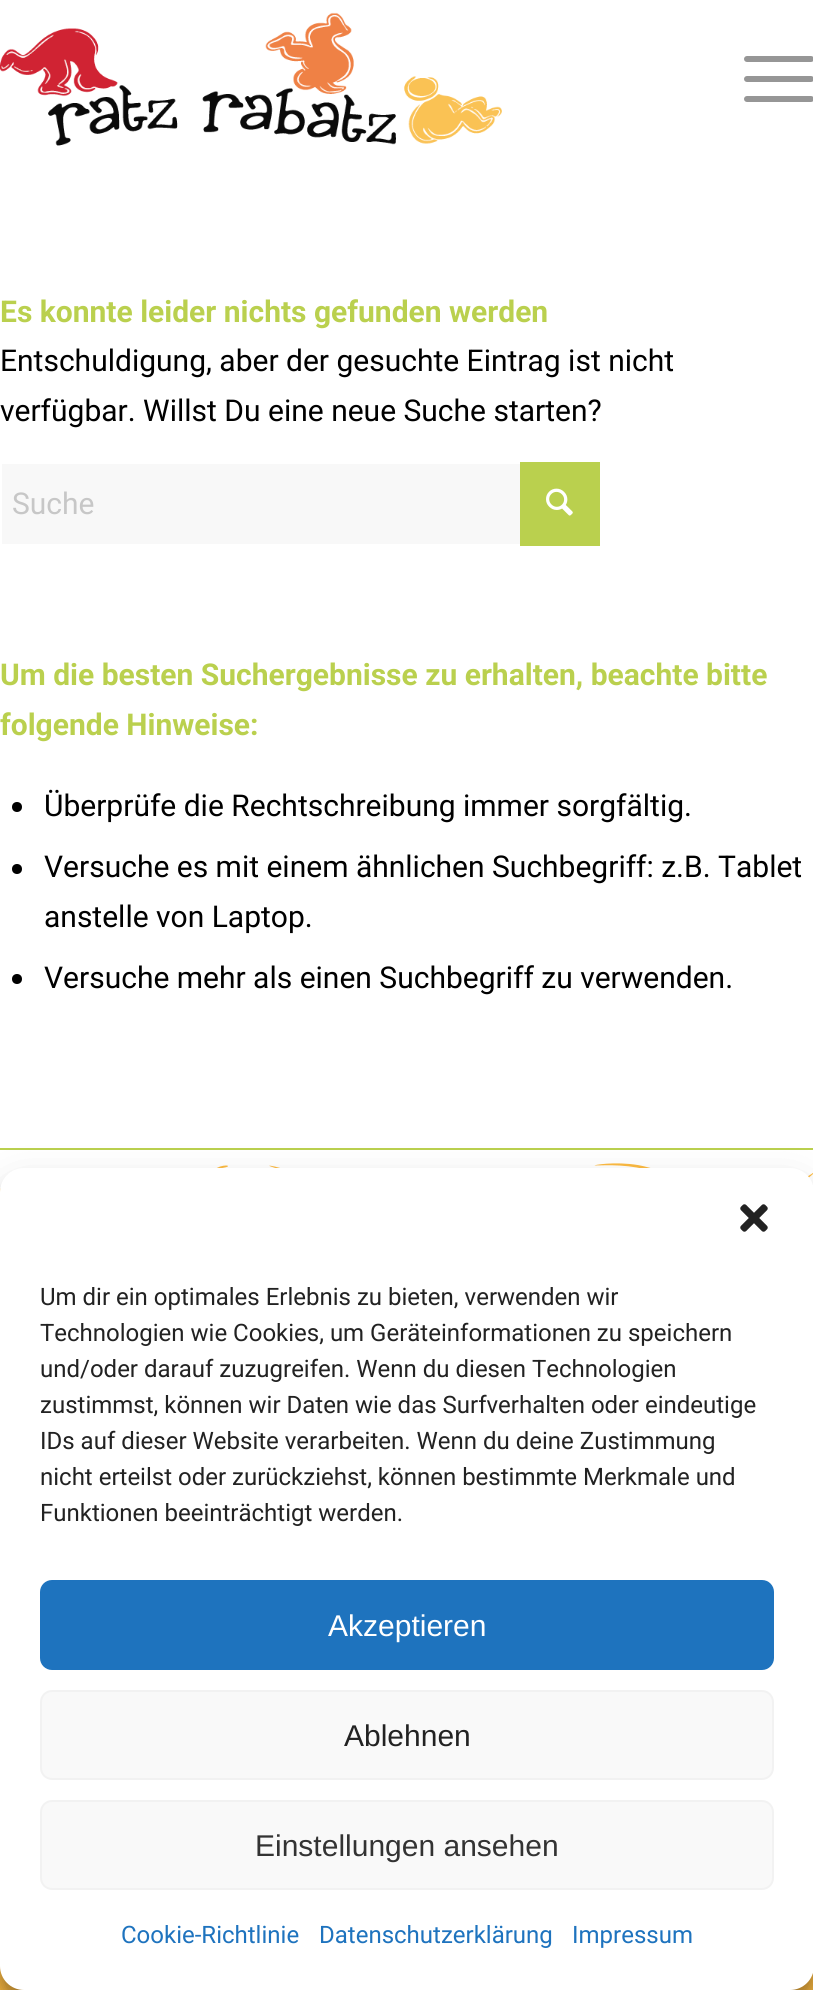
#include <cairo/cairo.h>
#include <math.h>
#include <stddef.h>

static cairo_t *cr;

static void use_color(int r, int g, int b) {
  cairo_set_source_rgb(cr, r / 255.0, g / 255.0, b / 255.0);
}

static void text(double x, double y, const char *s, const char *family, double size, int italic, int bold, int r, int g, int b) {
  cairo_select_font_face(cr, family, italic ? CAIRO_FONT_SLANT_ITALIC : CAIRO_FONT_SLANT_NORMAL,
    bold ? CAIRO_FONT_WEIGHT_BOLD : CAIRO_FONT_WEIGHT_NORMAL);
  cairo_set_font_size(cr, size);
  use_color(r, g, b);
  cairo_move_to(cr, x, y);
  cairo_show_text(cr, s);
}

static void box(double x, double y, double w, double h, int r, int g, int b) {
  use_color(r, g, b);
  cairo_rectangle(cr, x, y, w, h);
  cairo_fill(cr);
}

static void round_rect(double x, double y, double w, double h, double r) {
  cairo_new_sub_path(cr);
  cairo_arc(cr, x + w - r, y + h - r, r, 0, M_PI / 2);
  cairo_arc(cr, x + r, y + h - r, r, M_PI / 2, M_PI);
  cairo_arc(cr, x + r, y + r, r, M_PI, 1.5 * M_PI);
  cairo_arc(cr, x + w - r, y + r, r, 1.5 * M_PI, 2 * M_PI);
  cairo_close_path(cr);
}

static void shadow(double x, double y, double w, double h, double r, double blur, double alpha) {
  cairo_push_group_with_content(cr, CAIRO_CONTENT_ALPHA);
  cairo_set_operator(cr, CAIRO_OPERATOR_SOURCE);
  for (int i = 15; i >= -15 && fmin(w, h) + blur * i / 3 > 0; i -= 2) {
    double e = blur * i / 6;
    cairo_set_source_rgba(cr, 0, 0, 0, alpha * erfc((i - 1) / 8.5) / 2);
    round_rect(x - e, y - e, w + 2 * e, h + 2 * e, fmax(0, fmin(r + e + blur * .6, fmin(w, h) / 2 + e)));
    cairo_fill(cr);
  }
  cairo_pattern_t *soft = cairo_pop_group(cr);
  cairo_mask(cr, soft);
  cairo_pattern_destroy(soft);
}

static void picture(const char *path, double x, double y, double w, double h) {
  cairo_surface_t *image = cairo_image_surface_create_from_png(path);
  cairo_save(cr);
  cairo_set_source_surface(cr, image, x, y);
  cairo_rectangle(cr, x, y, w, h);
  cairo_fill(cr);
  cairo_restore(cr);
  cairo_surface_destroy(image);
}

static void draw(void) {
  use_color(255, 255, 255);
  cairo_paint(cr);
  picture("img_01.png", 0, 12, 502, 134);
  use_color(150, 150, 150);
  round_rect(744, 76, 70, 6, 3);
  cairo_fill(cr);
  round_rect(744, 56, 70, 6, 3);
  cairo_fill(cr);
  round_rect(744, 96, 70, 6, 3);
  cairo_fill(cr);
  box(2, 464, 518, 80, 248, 248, 248);
  box(520, 462, 80, 84, 186, 208, 78);
  picture("img_02.png", 546, 488, 27, 28);
  use_color(0, 0, 0);
  cairo_arc(cr, 17, 807, 5, 0, 2 * M_PI);
  cairo_fill(cr);
  cairo_arc(cr, 17, 869, 5, 0, 2 * M_PI);
  cairo_fill(cr);
  cairo_arc(cr, 17, 979, 5, 0, 2 * M_PI);
  cairo_fill(cr);
  box(0, 1148, 813, 2, 186, 208, 78);
  box(0, 1163, 813, 827, 252, 186, 66);
  picture("img_03.png", 0, 1150, 813, 39);
  use_color(0, 0, 0);
  shadow(0, 1180, 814, 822, 24, 6, 0.23);
  shadow(0, 1188, 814, 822, 24, 20, 0.19);
  use_color(255, 255, 255);
  round_rect(0, 1168, 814, 822, 24);
  cairo_fill(cr);
  picture("img_04.png", 740, 1204, 28, 28);
  use_color(30, 115, 190);
  round_rect(41, 1581, 732, 88, 11);
  cairo_fill_preserve(cr);
  cairo_stroke(cr);
  use_color(249, 249, 249);
  round_rect(41, 1691, 732, 88, 11);
  cairo_fill_preserve(cr);
  use_color(242, 242, 242);
  cairo_stroke(cr);
  use_color(249, 249, 249);
  round_rect(41, 1801, 732, 88, 11);
  cairo_fill_preserve(cr);
  use_color(242, 242, 242);
  cairo_stroke(cr);
  text(0, 322, "Es konnte leider nichts gefunden werden", "Roboto", 30, 0, 1, 186, 208, 78);
  text(0, 371, "Entschuldigung, aber der gesuchte Eintrag ist nicht", "Roboto", 30, 0, 0, 0, 0, 0);
  text(0, 421, "verfügbar. Willst Du eine neue Suche starten?", "Roboto", 30, 0, 0, 0, 0, 0);
  text(12, 514, "Suche", "Roboto", 30, 0, 0, 199, 199, 199);
  text(0, 685, "Um die besten Suchergebnisse zu erhalten, beachte bitte", "Roboto", 30, 0, 1, 186, 208, 78);
  text(0, 735, "folgende Hinweise:", "Roboto", 30, 0, 1, 186, 208, 78);
  text(44, 816, "Überprüfe die Rechtschreibung immer sorgfältig.", "Roboto", 30, 0, 0, 0, 0, 0);
  text(44, 877, "Versuche es mit einem ähnlichen Suchbegriff: z.B. Tablet", "Roboto", 30, 0, 0, 0, 0, 0);
  text(44, 927, "anstelle von Laptop.", "Roboto", 30, 0, 0, 0, 0, 0);
  text(44, 988, "Versuche mehr als einen Suchbegriff zu verwenden.", "Roboto", 30, 0, 0, 0, 0, 0);
  text(40, 1305, "Um dir ein optimales Erlebnis zu bieten, verwenden wir", "Roboto", 24, 0, 0, 34, 34, 34);
  text(40, 1341, "Technologien wie Cookies, um Geräteinformationen zu speichern", "Roboto", 24, 0, 0, 34, 34, 34);
  text(40, 1377, "und/oder darauf zuzugreifen. Wenn du diesen Technologien", "Roboto", 24, 0, 0, 34, 34, 34);
  text(40, 1413, "zustimmst, können wir Daten wie das Surfverhalten oder eindeutige", "Roboto", 24, 0, 0, 34, 34, 34);
  text(40, 1449, "IDs auf dieser Website verarbeiten. Wenn du deine Zustimmung", "Roboto", 24, 0, 0, 34, 34, 34);
  text(40, 1485, "nicht erteilst oder zurückziehst, können bestimmte Merkmale und", "Roboto", 24, 0, 0, 34, 34, 34);
  text(40, 1521, "Funktionen beeinträchtigt werden.", "Roboto", 24, 0, 0, 34, 34, 34);
  text(328, 1636, "Akzeptieren", "Liberation Sans", 30, 0, 0, 255, 255, 255);
  text(344, 1746, "Ablehnen", "Liberation Sans", 30, 0, 0, 34, 34, 34);
  text(255, 1856, "Einstellungen ansehen", "Liberation Sans", 30, 0, 0, 51, 51, 51);
  text(121, 1943, "Cookie-Richtlinie", "Roboto", 24, 0, 0, 30, 115, 190);
  text(319, 1943, "Datenschutzerklärung", "Roboto", 24, 0, 0, 30, 115, 190);
  text(572, 1943, "Impressum", "Roboto", 24, 0, 0, 30, 115, 190);
}

int main(void) {
  cairo_surface_t *surface = cairo_image_surface_create(CAIRO_FORMAT_RGB24, 813, 1990);
  cr = cairo_create(surface);
  cairo_font_options_t *options = cairo_font_options_create();
  cairo_font_options_set_hint_metrics(options, CAIRO_HINT_METRICS_OFF);
  cairo_font_options_set_hint_style(options, CAIRO_HINT_STYLE_NONE);
  cairo_set_font_options(cr, options);
  cairo_set_miter_limit(cr, 4);
  draw();
  cairo_surface_write_to_png(surface, "out.png");
  cairo_font_options_destroy(options);
  cairo_destroy(cr);
  cairo_surface_destroy(surface);
  return 0;
}
